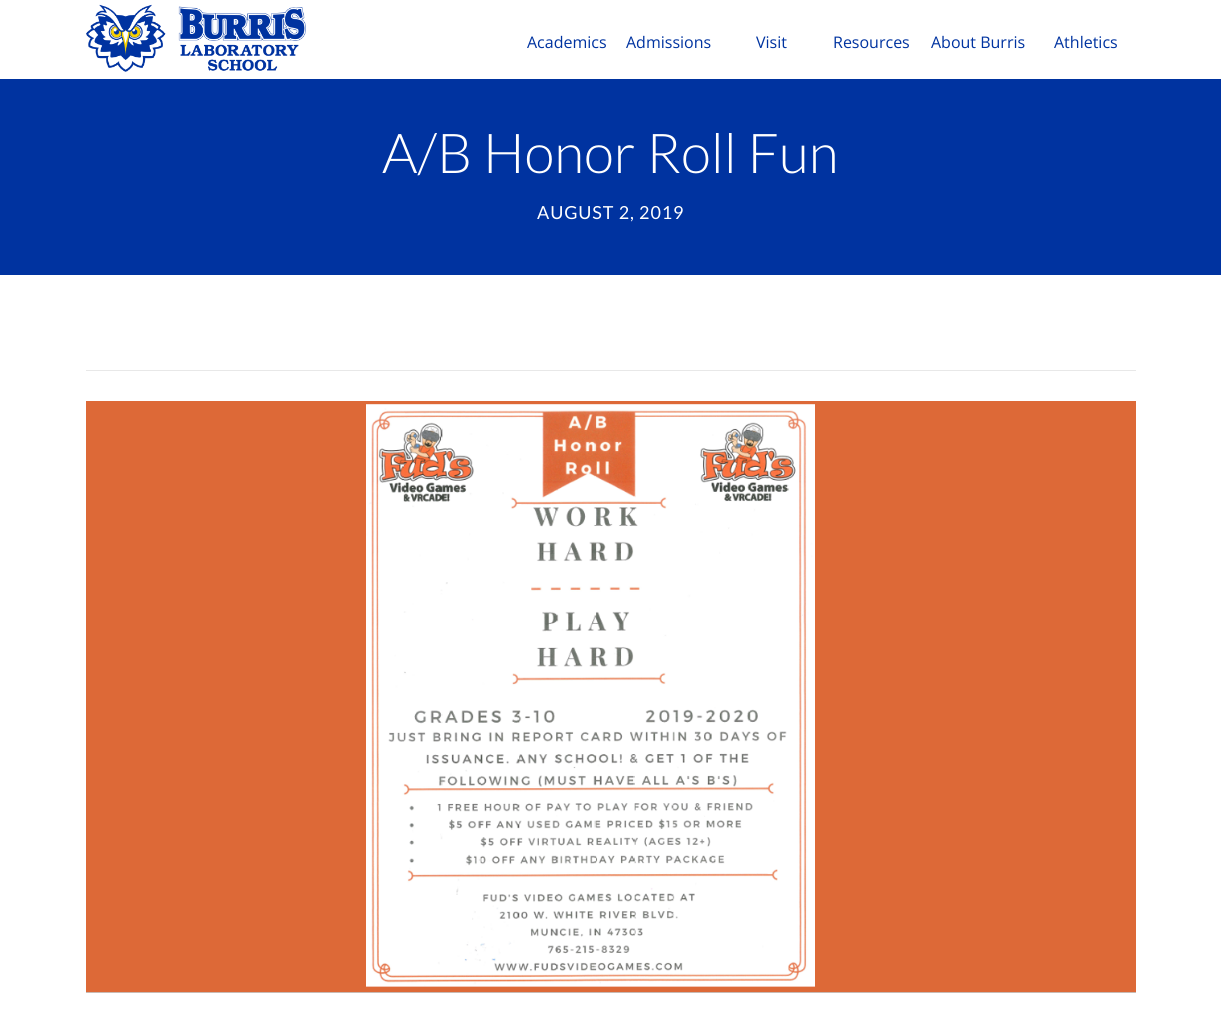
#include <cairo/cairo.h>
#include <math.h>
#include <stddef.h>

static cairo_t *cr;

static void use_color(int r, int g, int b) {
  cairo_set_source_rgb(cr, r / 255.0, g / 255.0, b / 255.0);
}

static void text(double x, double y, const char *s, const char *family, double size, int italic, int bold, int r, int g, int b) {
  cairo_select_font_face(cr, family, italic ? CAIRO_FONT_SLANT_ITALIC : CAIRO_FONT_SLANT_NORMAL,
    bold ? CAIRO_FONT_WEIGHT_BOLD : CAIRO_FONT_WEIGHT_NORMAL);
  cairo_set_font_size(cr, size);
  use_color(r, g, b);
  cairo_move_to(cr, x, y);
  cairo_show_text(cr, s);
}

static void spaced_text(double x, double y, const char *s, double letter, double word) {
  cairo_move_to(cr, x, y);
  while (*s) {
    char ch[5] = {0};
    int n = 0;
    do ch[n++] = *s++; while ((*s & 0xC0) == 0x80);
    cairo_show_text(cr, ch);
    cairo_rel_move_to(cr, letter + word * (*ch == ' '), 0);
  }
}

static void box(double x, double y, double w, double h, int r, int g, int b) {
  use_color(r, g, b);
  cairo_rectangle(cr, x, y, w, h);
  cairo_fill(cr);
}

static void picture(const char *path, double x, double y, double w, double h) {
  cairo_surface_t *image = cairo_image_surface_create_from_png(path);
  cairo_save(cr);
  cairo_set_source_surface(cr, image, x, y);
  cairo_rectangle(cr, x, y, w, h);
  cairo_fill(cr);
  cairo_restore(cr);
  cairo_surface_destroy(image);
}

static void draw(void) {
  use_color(255, 255, 255);
  cairo_paint(cr);
  picture("img_01.png", 86, 4, 220, 68);
  box(0, 79, 1221, 196, 0, 51, 160);
  box(86, 370, 1050, 1, 232, 232, 232);
  picture("img_02.png", 86, 401, 1050, 592);
  text(527, 48, "Academics", "Open Sans", 16, 0, 0, 0, 51, 160);
  text(626, 48, "Admissions", "Open Sans", 16, 0, 0, 0, 51, 160);
  text(756, 48, "Visit", "Open Sans", 16, 0, 0, 0, 51, 160);
  text(833, 48, "Resources", "Open Sans", 16, 0, 0, 0, 51, 160);
  text(931, 48, "About Burris", "Open Sans", 16, 0, 0, 0, 51, 160);
  text(1054, 48, "Athletics", "Open Sans", 16, 0, 0, 0, 51, 160);
  text(382, 173, "A/B Honor Roll Fun", "Lato Light", 55, 0, 0, 255, 255, 255);
  cairo_select_font_face(cr, "Lato", CAIRO_FONT_SLANT_NORMAL, CAIRO_FONT_WEIGHT_NORMAL);
  cairo_set_font_size(cr, 18);
  spaced_text(537, 219, "AUGUST 2, 2019", 0.9, 0);
}

int main(void) {
  cairo_surface_t *surface = cairo_image_surface_create(CAIRO_FORMAT_RGB24, 1221, 1010);
  cr = cairo_create(surface);
  cairo_font_options_t *options = cairo_font_options_create();
  cairo_font_options_set_hint_metrics(options, CAIRO_HINT_METRICS_OFF);
  cairo_font_options_set_hint_style(options, CAIRO_HINT_STYLE_NONE);
  cairo_set_font_options(cr, options);
  cairo_set_miter_limit(cr, 4);
  draw();
  cairo_surface_write_to_png(surface, "out.png");
  cairo_font_options_destroy(options);
  cairo_destroy(cr);
  cairo_surface_destroy(surface);
  return 0;
}
